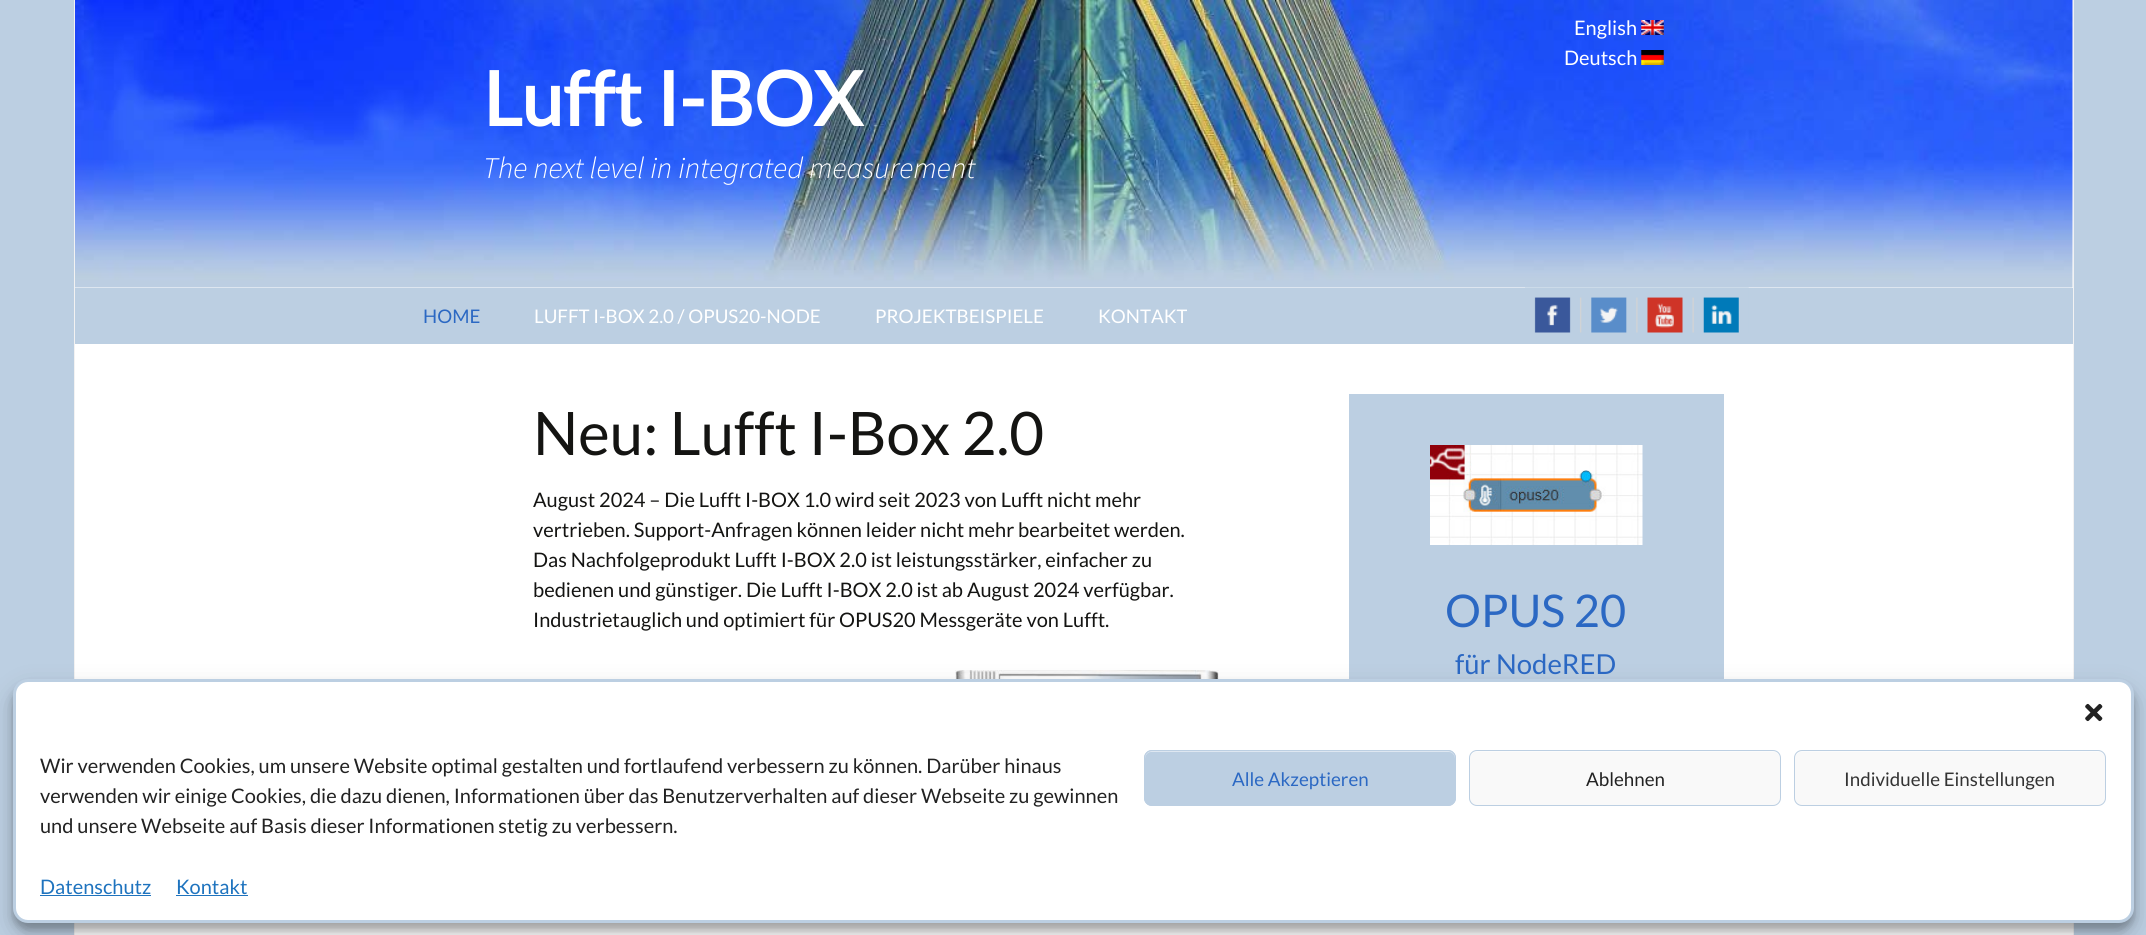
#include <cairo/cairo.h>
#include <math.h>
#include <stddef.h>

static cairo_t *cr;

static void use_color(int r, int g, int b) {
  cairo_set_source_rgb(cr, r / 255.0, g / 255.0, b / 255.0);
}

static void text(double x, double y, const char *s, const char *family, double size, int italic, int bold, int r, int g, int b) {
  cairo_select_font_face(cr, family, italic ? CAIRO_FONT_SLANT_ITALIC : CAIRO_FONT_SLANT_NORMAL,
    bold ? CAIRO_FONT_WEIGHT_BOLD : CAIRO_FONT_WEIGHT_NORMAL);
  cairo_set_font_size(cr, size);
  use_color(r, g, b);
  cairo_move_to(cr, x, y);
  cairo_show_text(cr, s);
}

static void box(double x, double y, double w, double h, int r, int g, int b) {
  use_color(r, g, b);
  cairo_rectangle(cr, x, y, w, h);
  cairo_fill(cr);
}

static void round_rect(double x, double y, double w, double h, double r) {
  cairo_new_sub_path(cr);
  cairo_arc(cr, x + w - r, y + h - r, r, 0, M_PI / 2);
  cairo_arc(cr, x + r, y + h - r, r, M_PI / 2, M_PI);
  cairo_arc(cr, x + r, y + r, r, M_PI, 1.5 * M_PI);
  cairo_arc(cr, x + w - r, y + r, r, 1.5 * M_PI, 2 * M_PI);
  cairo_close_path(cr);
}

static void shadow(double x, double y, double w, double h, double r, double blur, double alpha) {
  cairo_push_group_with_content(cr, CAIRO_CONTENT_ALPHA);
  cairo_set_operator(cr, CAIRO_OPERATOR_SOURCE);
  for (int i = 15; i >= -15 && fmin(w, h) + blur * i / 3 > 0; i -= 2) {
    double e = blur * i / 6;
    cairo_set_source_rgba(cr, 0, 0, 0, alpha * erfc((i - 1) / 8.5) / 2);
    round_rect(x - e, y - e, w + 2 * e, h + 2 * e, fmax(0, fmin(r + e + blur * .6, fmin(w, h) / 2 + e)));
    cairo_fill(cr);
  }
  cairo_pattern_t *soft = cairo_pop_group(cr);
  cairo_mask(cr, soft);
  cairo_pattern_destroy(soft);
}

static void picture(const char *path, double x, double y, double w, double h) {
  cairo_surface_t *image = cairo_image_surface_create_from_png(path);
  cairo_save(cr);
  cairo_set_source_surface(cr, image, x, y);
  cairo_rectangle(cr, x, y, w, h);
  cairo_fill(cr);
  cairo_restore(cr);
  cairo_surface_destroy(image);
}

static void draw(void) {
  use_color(188, 207, 226);
  cairo_paint(cr);
  box(75, 0, 1998, 935, 255, 255, 255);
  box(2073, 0, 1, 935, 242, 242, 242);
  box(74, 0, 1, 935, 242, 242, 242);
  picture("img_01.png", 75, 0, 1998, 288);
  picture("img_02.png", 1641, 20, 23, 15);
  picture("img_03.png", 1641, 50, 23, 15);
  box(75, 288, 1998, 56, 188, 207, 226);
  picture("img_04.png", 1525, 287, 224, 46);
  picture("img_05.png", 955, 670, 264, 9);
  box(1349, 394, 375, 285, 188, 207, 226);
  picture("img_06.png", 1430, 445, 213, 100);
  use_color(0, 0, 0);
  shadow(13, 686, 2121, 244, 15, 4, 0.23);
  shadow(13, 691, 2121, 244, 15, 12.5, 0.19);
  use_color(255, 255, 255);
  round_rect(14.5, 680.5, 2118, 241, 13.5);
  cairo_fill_preserve(cr);
  use_color(188, 207, 226);
  cairo_set_line_width(cr, 3);
  cairo_stroke(cr);
  picture("img_07.png", 2085, 703, 18, 19);
  round_rect(1144, 750, 312, 56, 8);
  cairo_fill(cr);
  use_color(222, 231, 241);
  cairo_new_path(cr);
  cairo_move_to(cr, 1151, 752);
  cairo_line_to(cr, 1449, 752);
  cairo_curve_to(cr, 1452, 752, 1455, 755, 1455, 759);
  cairo_line_to(cr, 1455, 757);
  cairo_curve_to(cr, 1455, 754, 1452, 751, 1449, 751);
  cairo_line_to(cr, 1151, 751);
  cairo_curve_to(cr, 1148, 751, 1145, 754, 1145, 757);
  cairo_line_to(cr, 1145, 759);
  cairo_curve_to(cr, 1145, 755, 1148, 752, 1151, 752);
  cairo_close_path(cr);
  cairo_fill(cr);
  round_rect(1144.5, 750.5, 311, 55, 7.5);
  use_color(188, 207, 226);
  cairo_set_line_width(cr, 1);
  cairo_stroke(cr);
  use_color(249, 249, 249);
  round_rect(1469, 750, 312, 56, 8);
  cairo_fill(cr);
  use_color(252, 252, 252);
  cairo_new_path(cr);
  cairo_move_to(cr, 1476, 752);
  cairo_line_to(cr, 1774, 752);
  cairo_curve_to(cr, 1777, 752, 1780, 755, 1780, 759);
  cairo_line_to(cr, 1780, 757);
  cairo_curve_to(cr, 1780, 754, 1777, 751, 1774, 751);
  cairo_line_to(cr, 1476, 751);
  cairo_curve_to(cr, 1473, 751, 1470, 754, 1470, 757);
  cairo_line_to(cr, 1470, 759);
  cairo_curve_to(cr, 1470, 755, 1473, 752, 1476, 752);
  cairo_close_path(cr);
  cairo_fill(cr);
  round_rect(1469.5, 750.5, 311, 55, 7.5);
  use_color(188, 207, 226);
  cairo_stroke(cr);
  use_color(249, 249, 249);
  round_rect(1794, 750, 312, 56, 8);
  cairo_fill(cr);
  use_color(252, 252, 252);
  cairo_new_path(cr);
  cairo_move_to(cr, 1801, 752);
  cairo_line_to(cr, 2099, 752);
  cairo_curve_to(cr, 2102, 752, 2105, 755, 2105, 759);
  cairo_line_to(cr, 2105, 757);
  cairo_curve_to(cr, 2105, 754, 2102, 751, 2099, 751);
  cairo_line_to(cr, 1801, 751);
  cairo_curve_to(cr, 1798, 751, 1795, 754, 1795, 757);
  cairo_line_to(cr, 1795, 759);
  cairo_curve_to(cr, 1795, 755, 1798, 752, 1801, 752);
  cairo_close_path(cr);
  cairo_fill(cr);
  round_rect(1794.5, 750.5, 311, 55, 7.5);
  use_color(188, 207, 226);
  cairo_stroke(cr);
  box(40, 895, 111, 1, 30, 115, 190);
  box(176, 895, 72, 1, 30, 115, 190);
  text(1574, 35, "English", "Lato", 20, 0, 0, 255, 255, 255);
  text(1564, 65, "Deutsch", "Lato", 20, 0, 0, 255, 255, 255);
  text(483, 126, "Lufft I-BOX", "Lato", 75, 0, 1, 255, 255, 255);
  text(483, 178, "The next level in integrated measurement", "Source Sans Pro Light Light", 30, 1, 0, 255, 255, 255);
  text(423, 323, "HOME", "Lato", 18.75, 0, 0, 43, 104, 195);
  text(534, 323, "LUFFT I-BOX 2.0 / OPUS20-NODE", "Lato", 18.75, 0, 0, 255, 255, 255);
  text(875, 323, "PROJEKTBEISPIELE", "Lato", 18.75, 0, 0, 255, 255, 255);
  text(1098, 323, "KONTAKT", "Lato", 18.75, 0, 0, 255, 255, 255);
  text(533, 455, "Neu: Lufft I-Box 2.0", "Lato", 60, 0, 0, 20, 20, 18);
  text(533, 507, "August 2024 – Die Lufft I-BOX 1.0 wird seit 2023 von Lufft nicht mehr", "Lato", 20, 0, 0, 20, 20, 18);
  text(533, 537, "vertrieben. Support-Anfragen können leider nicht mehr bearbeitet werden.", "Lato", 20, 0, 0, 20, 20, 18);
  text(533, 567, "Das Nachfolgeprodukt Lufft I-BOX 2.0 ist leistungsstärker, einfacher zu", "Lato", 20, 0, 0, 20, 20, 18);
  text(533, 597, "bedienen und günstiger. Die Lufft I-BOX 2.0 ist ab August 2024 verfügbar.", "Lato", 20, 0, 0, 20, 20, 18);
  text(533, 627, "Industrietauglich und optimiert für OPUS20 Messgeräte von Lufft.", "Lato", 20, 0, 0, 20, 20, 18);
  text(1445, 627, "OPUS 20", "Lato", 45, 0, 0, 43, 104, 195);
  text(1455, 674, "für NodeRED", "Lato", 27.5, 0, 0, 43, 104, 195);
  text(40, 773, "Wir verwenden Cookies, um unsere Website optimal gestalten und fortlaufend verbessern zu können. Darüber hinaus", "Lato", 20, 0, 0, 34, 34, 34);
  text(40, 803, "verwenden wir einige Cookies, die dazu dienen, Informationen über das Benutzerverhalten auf dieser Webseite zu gewinnen", "Lato", 20, 0, 0, 34, 34, 34);
  text(40, 833, "und unsere Webseite auf Basis dieser Informationen stetig zu verbessern.", "Lato", 20, 0, 0, 34, 34, 34);
  text(1232, 786, "Alle Akzeptieren", "Lato", 18.75, 0, 0, 43, 104, 195);
  text(1586, 786, "Ablehnen", "Lato", 18.75, 0, 0, 34, 34, 34);
  text(1844, 786, "Individuelle Einstellungen", "Lato", 18.75, 0, 0, 51, 51, 51);
  text(40, 894, "Datenschutz", "Lato", 20, 0, 0, 30, 115, 190);
  text(176, 894, "Kontakt", "Lato", 20, 0, 0, 30, 115, 190);
}

int main(void) {
  cairo_surface_t *surface = cairo_image_surface_create(CAIRO_FORMAT_RGB24, 2146, 935);
  cr = cairo_create(surface);
  cairo_font_options_t *options = cairo_font_options_create();
  cairo_font_options_set_hint_metrics(options, CAIRO_HINT_METRICS_OFF);
  cairo_font_options_set_hint_style(options, CAIRO_HINT_STYLE_NONE);
  cairo_set_font_options(cr, options);
  cairo_set_miter_limit(cr, 4);
  draw();
  cairo_surface_write_to_png(surface, "out.png");
  cairo_font_options_destroy(options);
  cairo_destroy(cr);
  cairo_surface_destroy(surface);
  return 0;
}
